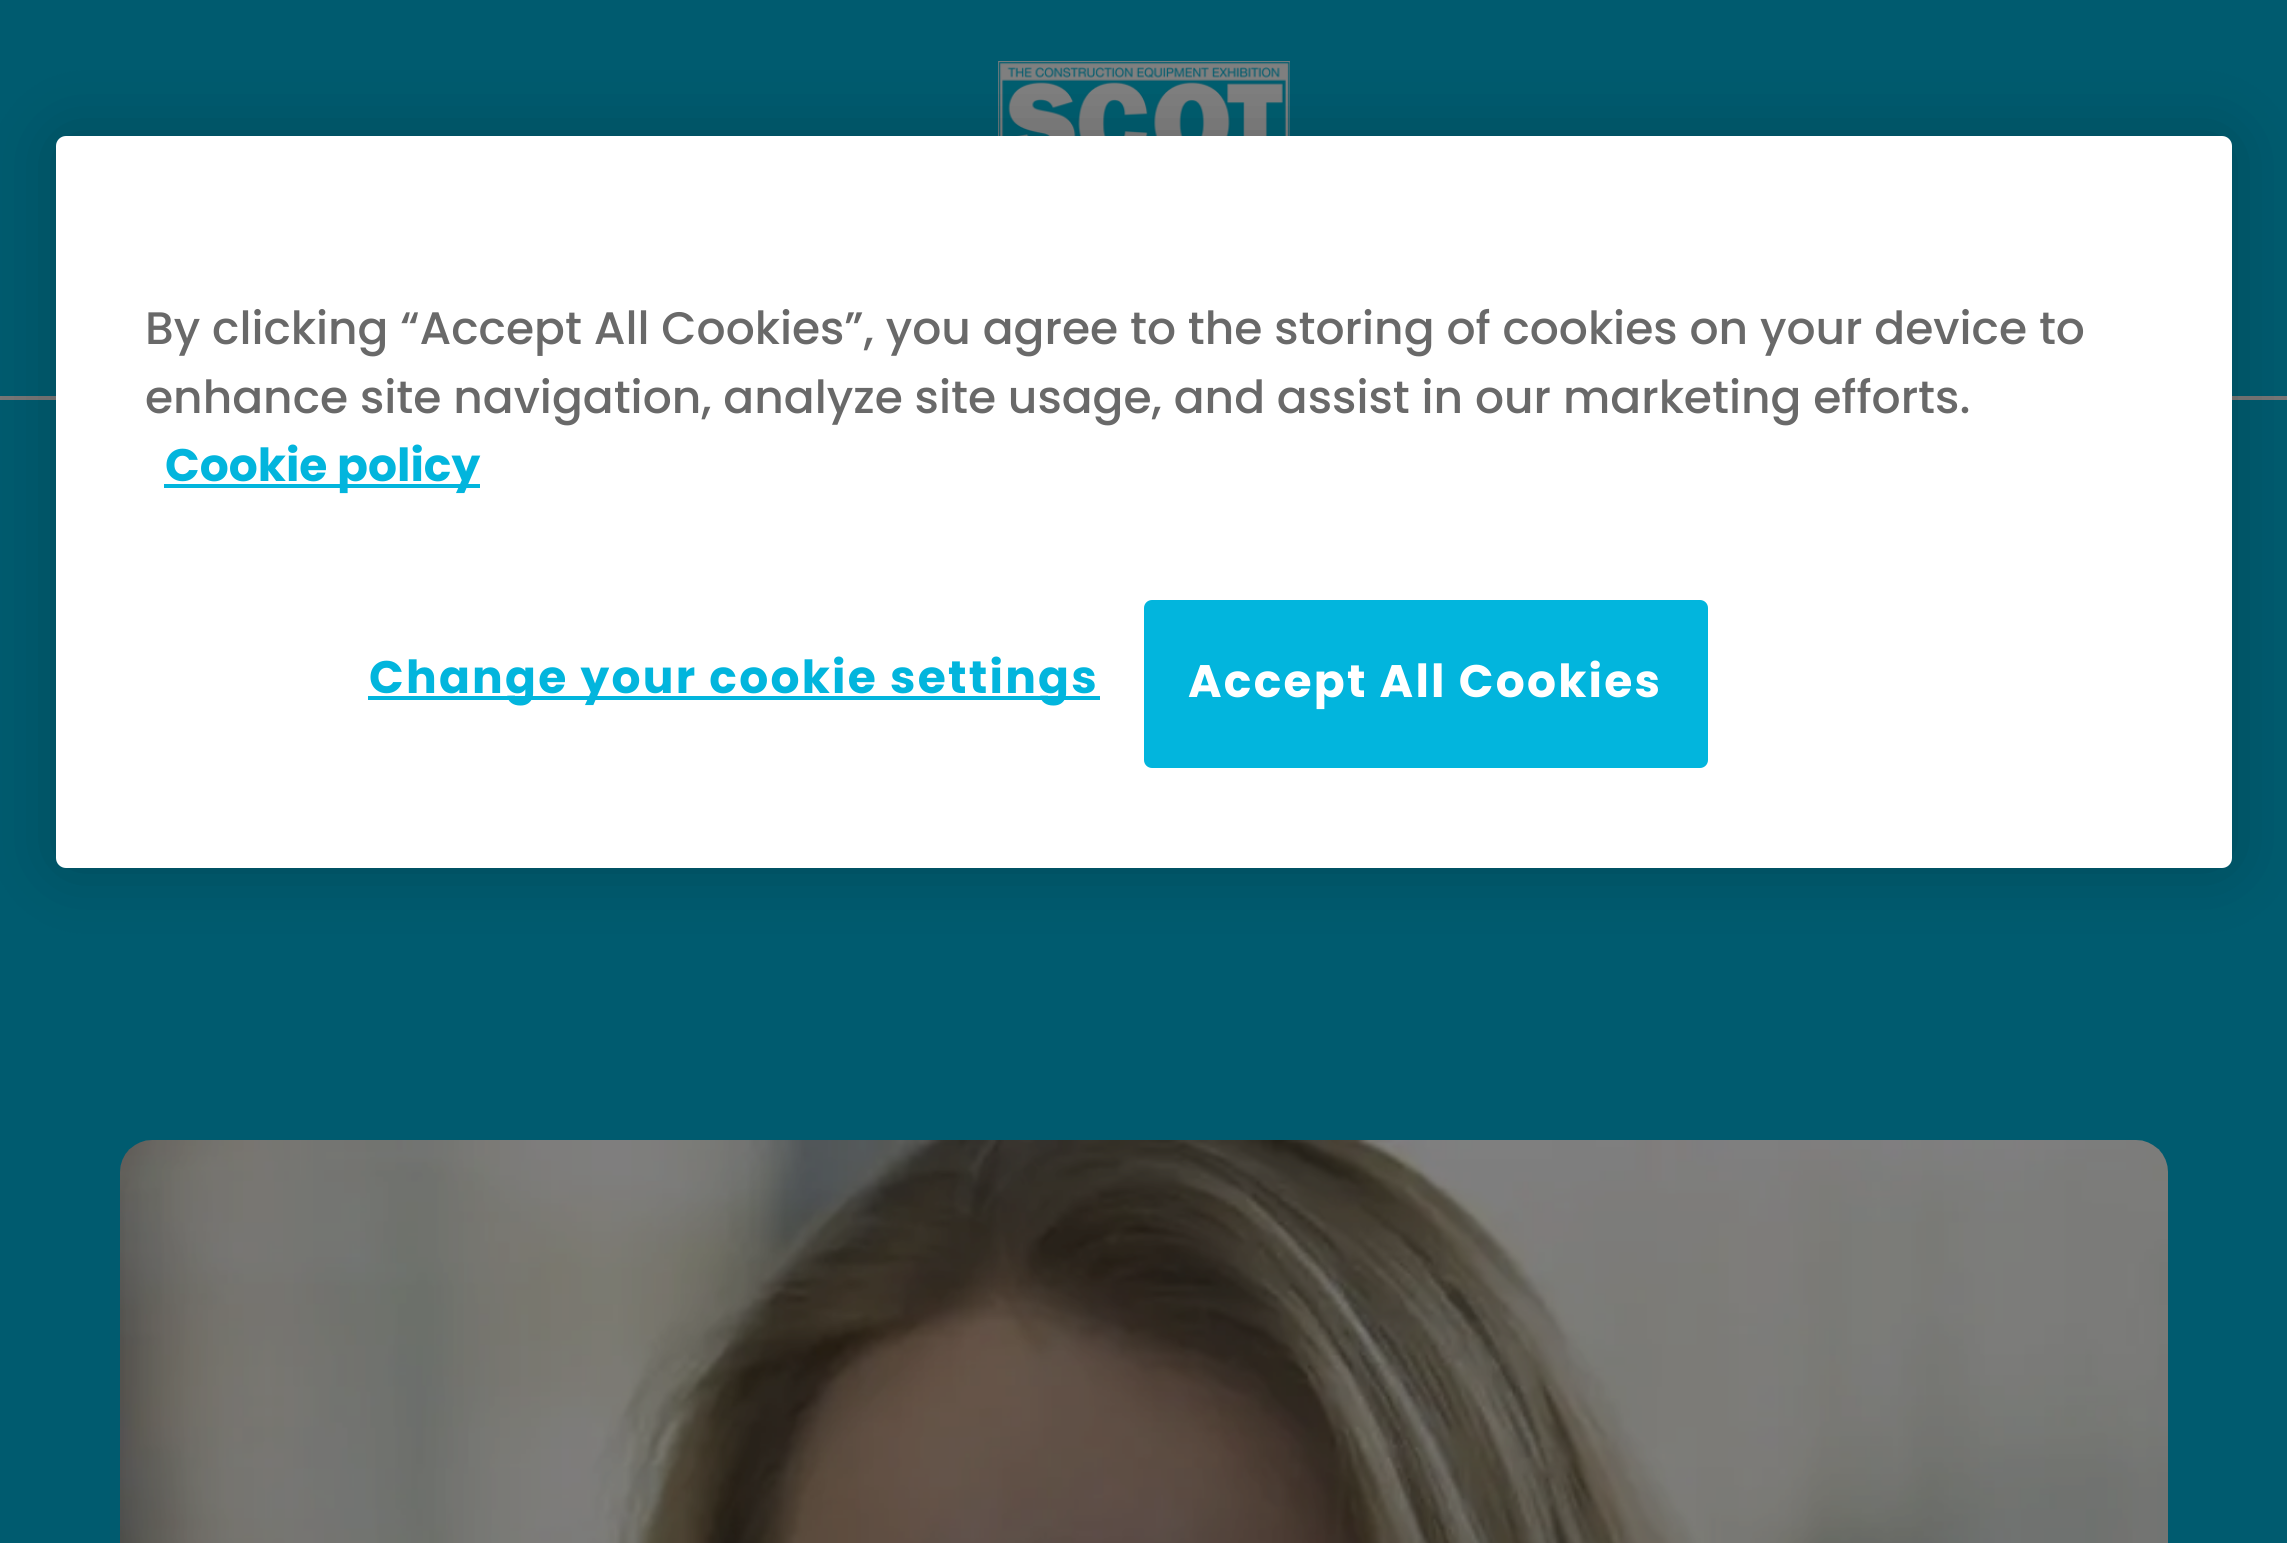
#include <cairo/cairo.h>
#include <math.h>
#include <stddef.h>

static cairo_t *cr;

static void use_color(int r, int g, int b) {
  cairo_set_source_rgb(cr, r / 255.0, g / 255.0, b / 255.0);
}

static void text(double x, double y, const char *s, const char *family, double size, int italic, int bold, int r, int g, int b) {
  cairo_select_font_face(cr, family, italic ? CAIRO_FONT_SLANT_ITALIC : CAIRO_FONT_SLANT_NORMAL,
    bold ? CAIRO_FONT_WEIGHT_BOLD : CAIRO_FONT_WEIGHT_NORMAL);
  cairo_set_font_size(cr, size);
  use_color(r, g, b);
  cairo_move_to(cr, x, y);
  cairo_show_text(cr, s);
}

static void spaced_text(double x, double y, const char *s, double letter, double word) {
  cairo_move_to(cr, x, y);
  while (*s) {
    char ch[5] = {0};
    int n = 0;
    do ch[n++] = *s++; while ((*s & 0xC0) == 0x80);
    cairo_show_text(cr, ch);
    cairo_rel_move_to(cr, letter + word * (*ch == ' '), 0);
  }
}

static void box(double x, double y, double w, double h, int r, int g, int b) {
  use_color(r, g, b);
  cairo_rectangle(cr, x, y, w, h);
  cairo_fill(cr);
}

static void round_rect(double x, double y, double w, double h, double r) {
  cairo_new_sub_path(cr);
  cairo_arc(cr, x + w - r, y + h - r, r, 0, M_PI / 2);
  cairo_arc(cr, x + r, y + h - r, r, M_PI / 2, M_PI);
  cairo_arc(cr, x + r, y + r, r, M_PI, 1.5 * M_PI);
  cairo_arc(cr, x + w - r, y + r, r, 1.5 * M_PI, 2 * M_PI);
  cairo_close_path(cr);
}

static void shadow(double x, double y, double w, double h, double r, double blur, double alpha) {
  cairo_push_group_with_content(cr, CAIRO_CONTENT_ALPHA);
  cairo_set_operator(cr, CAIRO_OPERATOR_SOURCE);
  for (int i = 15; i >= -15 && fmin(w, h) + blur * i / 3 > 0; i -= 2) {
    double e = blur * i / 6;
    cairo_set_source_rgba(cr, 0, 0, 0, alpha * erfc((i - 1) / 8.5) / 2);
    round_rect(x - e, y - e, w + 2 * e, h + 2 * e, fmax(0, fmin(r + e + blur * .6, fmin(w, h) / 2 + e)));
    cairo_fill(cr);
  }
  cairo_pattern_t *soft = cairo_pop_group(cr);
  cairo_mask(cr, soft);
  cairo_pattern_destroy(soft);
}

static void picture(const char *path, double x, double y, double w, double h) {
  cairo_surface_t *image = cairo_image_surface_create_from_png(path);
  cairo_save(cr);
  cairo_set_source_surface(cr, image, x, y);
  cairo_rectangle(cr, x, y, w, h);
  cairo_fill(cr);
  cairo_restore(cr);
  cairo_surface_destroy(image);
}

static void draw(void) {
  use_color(0, 91, 111);
  cairo_paint(cr);
  box(0, 396, 2287, 4, 119, 119, 119);
  picture("img_01.png", 998, 61, 292, 75);
  picture("img_02.png", 120, 1140, 2048, 403);
  use_color(0, 0, 0);
  shadow(56, 136, 2176, 732, 10, 36, 0.2);
  use_color(255, 255, 255);
  round_rect(56, 136, 2176, 732, 10);
  cairo_fill(cr);
  box(164, 484, 316, 4, 2, 181, 221);
  box(368, 696, 732, 4, 2, 181, 221);
  round_rect(1146, 602, 560, 164, 6);
  cairo_fill_preserve(cr);
  cairo_set_line_width(cr, 4);
  cairo_stroke(cr);
  text(145, 344, "By clicking “Accept All Cookies”, you agree to the storing of cookies on your device to", "Poppins Medium", 45.55, 0, 0, 105, 105, 105);
  text(145, 413, "enhance site navigation, analyze site usage, and assist in our marketing efforts.", "Poppins Medium", 45.55, 0, 0, 105, 105, 105);
  text(165, 481, "Cookie policy", "Poppins", 45.55, 0, 1, 2, 181, 221);
  spaced_text(369, 693, "Change your cookie settings", 2.25, 0);
  use_color(255, 255, 255);
  spaced_text(1188, 697, "Accept All Cookies", 2.25, 0);
}

int main(void) {
  cairo_surface_t *surface = cairo_image_surface_create(CAIRO_FORMAT_RGB24, 2287, 1543);
  cr = cairo_create(surface);
  cairo_font_options_t *options = cairo_font_options_create();
  cairo_font_options_set_hint_metrics(options, CAIRO_HINT_METRICS_OFF);
  cairo_font_options_set_hint_style(options, CAIRO_HINT_STYLE_NONE);
  cairo_set_font_options(cr, options);
  cairo_set_miter_limit(cr, 4);
  draw();
  cairo_surface_write_to_png(surface, "out.png");
  cairo_font_options_destroy(options);
  cairo_destroy(cr);
  cairo_surface_destroy(surface);
  return 0;
}
